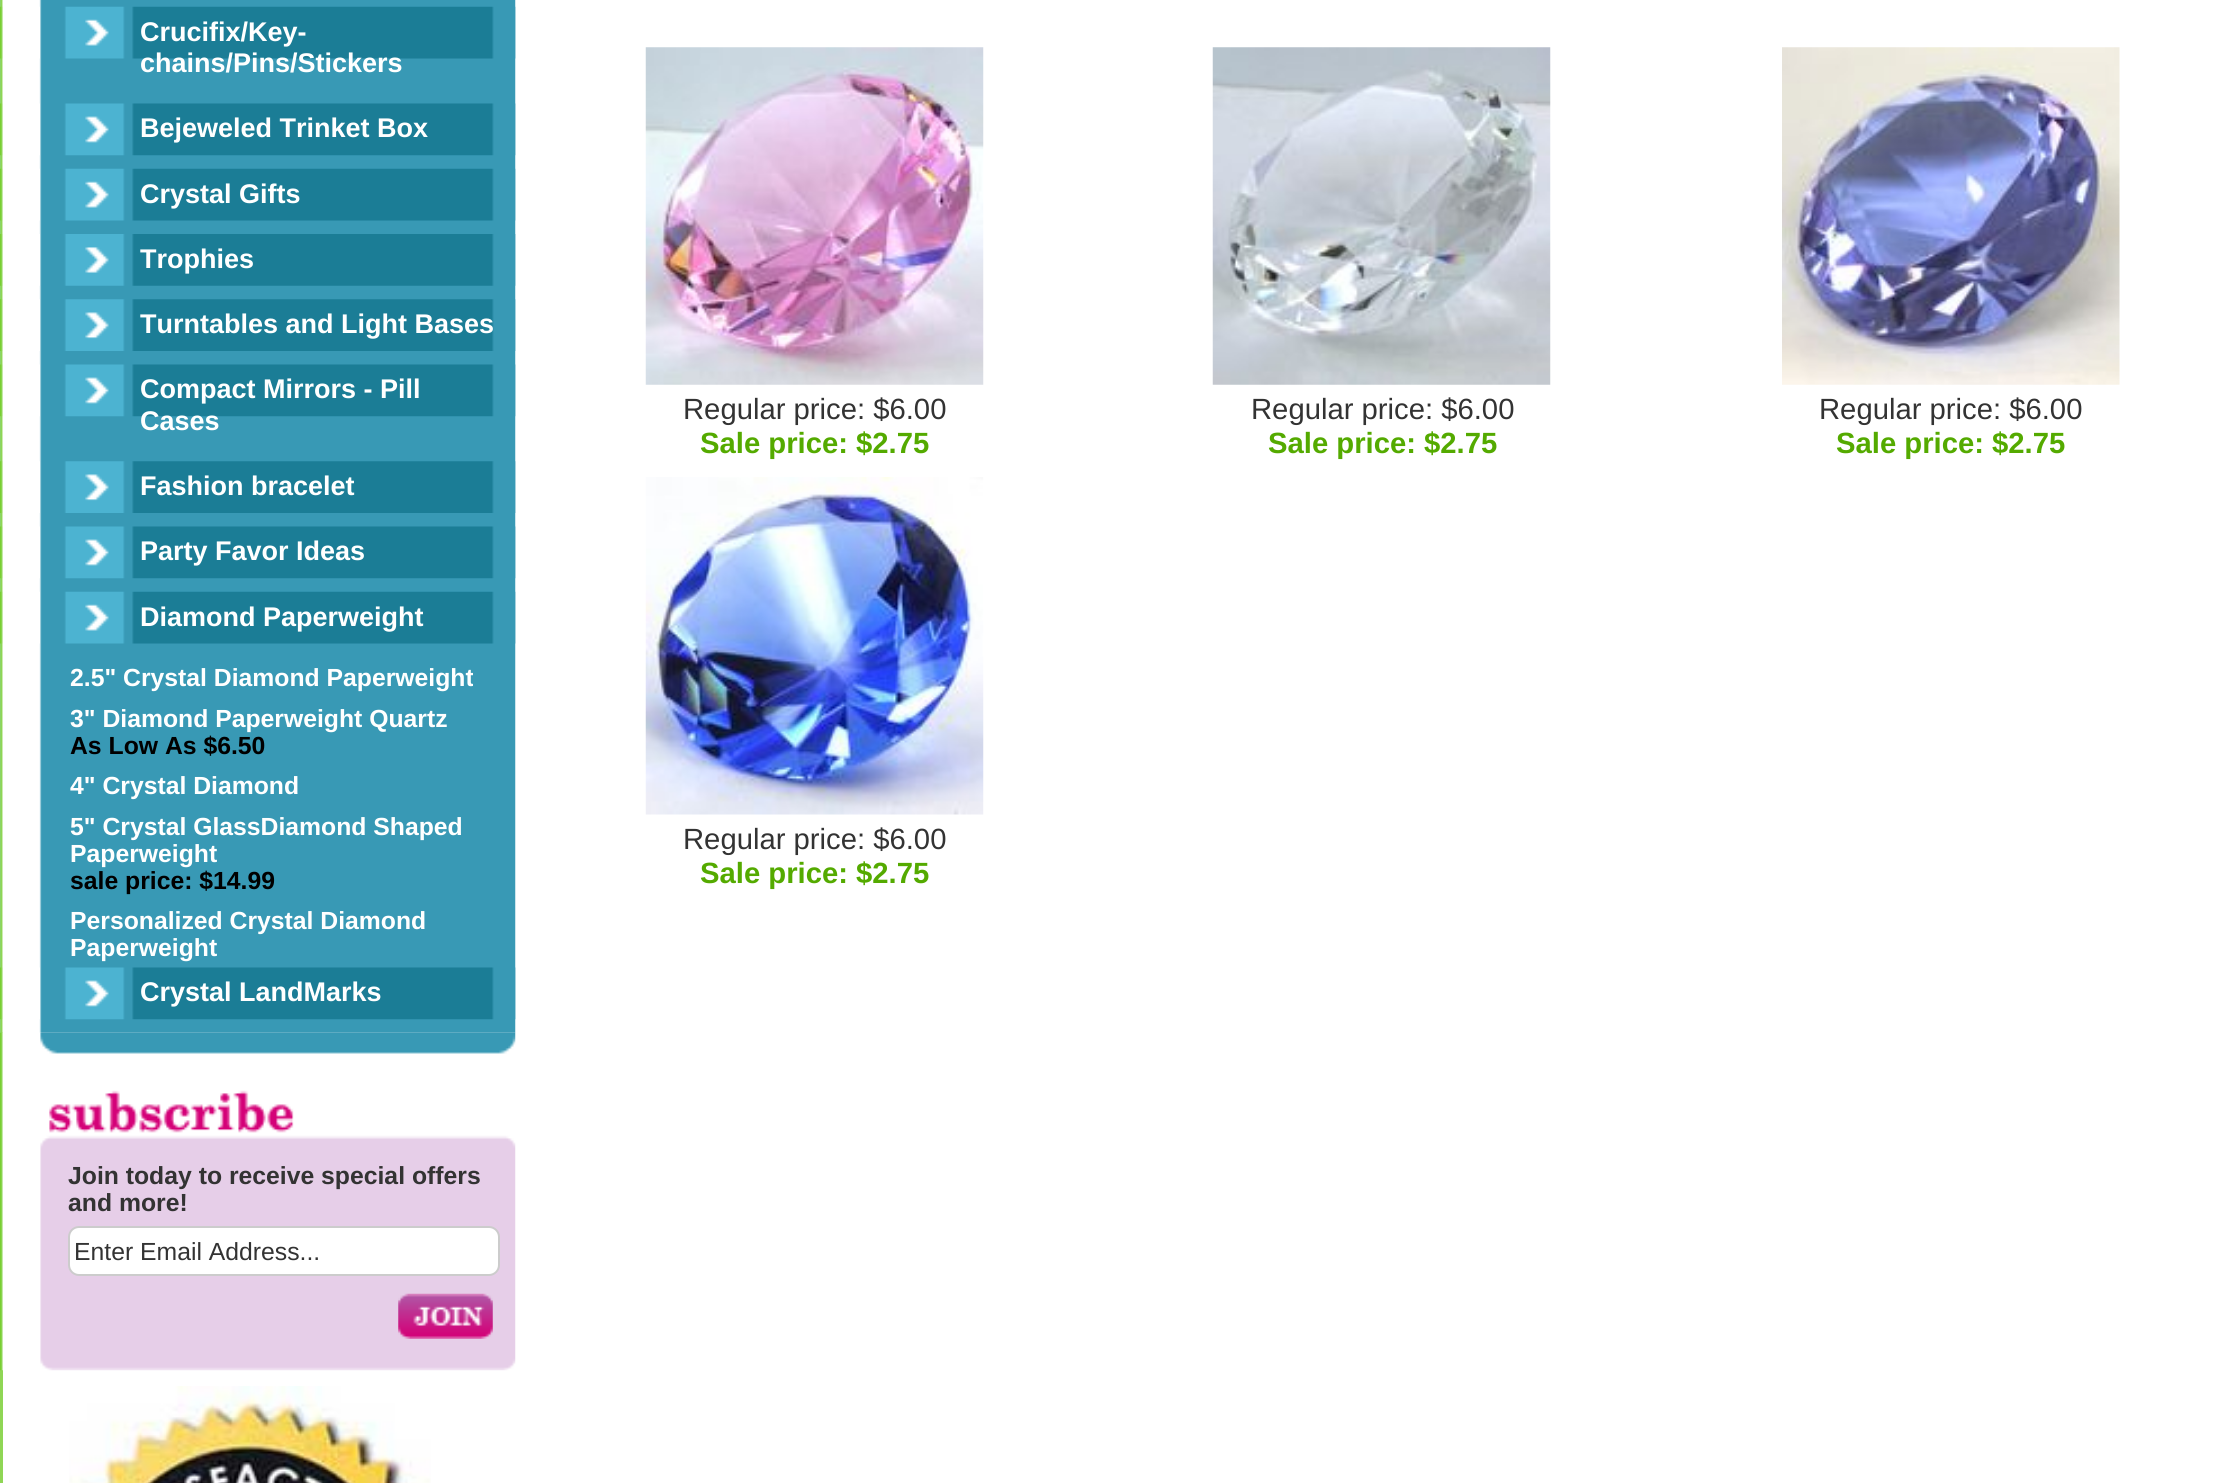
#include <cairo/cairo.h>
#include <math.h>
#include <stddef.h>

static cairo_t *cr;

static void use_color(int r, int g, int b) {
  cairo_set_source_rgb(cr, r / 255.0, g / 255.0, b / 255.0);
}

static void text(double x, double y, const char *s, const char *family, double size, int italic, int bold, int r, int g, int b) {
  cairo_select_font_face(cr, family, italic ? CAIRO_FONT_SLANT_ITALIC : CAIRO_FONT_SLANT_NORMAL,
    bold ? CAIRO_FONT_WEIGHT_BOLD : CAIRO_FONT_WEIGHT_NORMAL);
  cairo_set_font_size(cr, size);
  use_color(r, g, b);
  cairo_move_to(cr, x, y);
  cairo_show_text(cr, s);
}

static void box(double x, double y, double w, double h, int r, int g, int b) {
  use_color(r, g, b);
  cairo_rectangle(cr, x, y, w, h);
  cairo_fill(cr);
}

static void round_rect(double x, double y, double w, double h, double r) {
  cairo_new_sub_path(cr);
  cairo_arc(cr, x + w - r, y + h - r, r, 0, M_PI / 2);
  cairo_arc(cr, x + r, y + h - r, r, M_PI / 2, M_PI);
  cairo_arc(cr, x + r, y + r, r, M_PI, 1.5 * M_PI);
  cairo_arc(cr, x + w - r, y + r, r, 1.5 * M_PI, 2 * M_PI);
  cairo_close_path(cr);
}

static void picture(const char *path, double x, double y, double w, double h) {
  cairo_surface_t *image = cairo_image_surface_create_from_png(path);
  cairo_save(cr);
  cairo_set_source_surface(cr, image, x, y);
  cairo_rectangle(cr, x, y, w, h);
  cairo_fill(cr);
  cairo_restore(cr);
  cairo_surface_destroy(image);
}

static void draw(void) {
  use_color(255, 255, 255);
  cairo_paint(cr);
  box(0, 1032, 3, 451, 143, 214, 85);
  picture("img_01.png", 0, 0, 516, 1033);
  picture("img_02.png", 0, 6, 516, 53);
  picture("img_03.png", 0, 103, 516, 53);
  picture("img_02.png", 0, 168, 516, 53);
  picture("img_04.png", 0, 234, 516, 52);
  picture("img_05.png", 0, 299, 516, 52);
  picture("img_03.png", 0, 364, 516, 53);
  picture("img_06.png", 0, 461, 516, 52);
  picture("img_03.png", 0, 526, 516, 53);
  picture("img_07.png", 0, 591, 516, 53);
  picture("img_03.png", 0, 967, 516, 53);
  picture("img_08.png", 0, 1032, 516, 339);
  use_color(255, 255, 255);
  round_rect(69, 1227, 430, 48, 10);
  cairo_fill_preserve(cr);
  use_color(204, 204, 204);
  cairo_stroke(cr);
  picture("img_09.png", 398, 1293, 95, 46);
  picture("img_10.png", 69, 1386, 362, 97);
  picture("img_11.png", 645, 47, 339, 338);
  picture("img_12.png", 1212, 47, 339, 338);
  picture("img_13.png", 1782, 47, 338, 338);
  picture("img_14.png", 645, 477, 339, 338);
  text(140, 41, "Crucifix/Key-", "Liberation Sans", 27, 0, 1, 255, 255, 255);
  text(140, 72, "chains/Pins/Stickers", "Liberation Sans", 27, 0, 1, 255, 255, 255);
  text(140, 137, "Bejeweled Trinket Box", "Liberation Sans", 27, 0, 1, 255, 255, 255);
  text(140, 203, "Crystal Gifts", "Liberation Sans", 27, 0, 1, 255, 255, 255);
  text(140, 268, "Trophies", "Liberation Sans", 27, 0, 1, 255, 255, 255);
  text(140, 333, "Turntables and Light Bases", "Liberation Sans", 27, 0, 1, 255, 255, 255);
  text(140, 398, "Compact Mirrors - Pill", "Liberation Sans", 27, 0, 1, 255, 255, 255);
  text(140, 430, "Cases", "Liberation Sans", 27, 0, 1, 255, 255, 255);
  text(140, 495, "Fashion bracelet", "Liberation Sans", 27, 0, 1, 255, 255, 255);
  text(140, 560, "Party Favor Ideas", "Liberation Sans", 27, 0, 1, 255, 255, 255);
  text(140, 626, "Diamond Paperweight", "Liberation Sans", 27, 0, 1, 255, 255, 255);
  text(70, 686, "2.5\" Crystal Diamond Paperweight", "Liberation Sans", 24.75, 0, 1, 255, 255, 255);
  text(70, 727, "3\" Diamond Paperweight Quartz", "Liberation Sans", 24.75, 0, 1, 255, 255, 255);
  text(70, 754, "As Low As $6.50", "Liberation Sans", 24.75, 0, 1, 0, 0, 0);
  text(70, 794, "4\" Crystal Diamond", "Liberation Sans", 24.75, 0, 1, 255, 255, 255);
  text(70, 835, "5\" Crystal GlassDiamond Shaped", "Liberation Sans", 24.75, 0, 1, 255, 255, 255);
  text(70, 862, "Paperweight", "Liberation Sans", 24.75, 0, 1, 255, 255, 255);
  text(70, 889, "sale price: $14.99", "Liberation Sans", 24.75, 0, 1, 0, 0, 0);
  text(70, 929, "Personalized Crystal Diamond", "Liberation Sans", 24.75, 0, 1, 255, 255, 255);
  text(70, 956, "Paperweight", "Liberation Sans", 24.75, 0, 1, 255, 255, 255);
  text(140, 1001, "Crystal LandMarks", "Liberation Sans", 27, 0, 1, 255, 255, 255);
  text(68, 1184, "Join today to receive special offers", "Liberation Sans", 24.75, 0, 1, 51, 51, 51);
  text(68, 1211, "and more!", "Liberation Sans", 24.75, 0, 1, 51, 51, 51);
  text(74, 1260, "Enter Email Address...", "Liberation Sans", 24.75, 0, 0, 51, 51, 51);
  text(683, 419, "Regular price: $6.00", "Liberation Sans", 29.25, 0, 0, 51, 51, 51);
  text(700, 453, "Sale price: $2.75", "Liberation Sans", 29.25, 0, 1, 84, 170, 0);
  text(1251, 419, "Regular price: $6.00", "Liberation Sans", 29.25, 0, 0, 51, 51, 51);
  text(1268, 453, "Sale price: $2.75", "Liberation Sans", 29.25, 0, 1, 84, 170, 0);
  text(1819, 419, "Regular price: $6.00", "Liberation Sans", 29.25, 0, 0, 51, 51, 51);
  text(1836, 453, "Sale price: $2.75", "Liberation Sans", 29.25, 0, 1, 84, 170, 0);
  text(683, 849, "Regular price: $6.00", "Liberation Sans", 29.25, 0, 0, 51, 51, 51);
  text(700, 883, "Sale price: $2.75", "Liberation Sans", 29.25, 0, 1, 84, 170, 0);
}

int main(void) {
  cairo_surface_t *surface = cairo_image_surface_create(CAIRO_FORMAT_RGB24, 2217, 1483);
  cr = cairo_create(surface);
  cairo_font_options_t *options = cairo_font_options_create();
  cairo_font_options_set_hint_metrics(options, CAIRO_HINT_METRICS_OFF);
  cairo_font_options_set_hint_style(options, CAIRO_HINT_STYLE_NONE);
  cairo_set_font_options(cr, options);
  cairo_set_miter_limit(cr, 4);
  draw();
  cairo_surface_write_to_png(surface, "out.png");
  cairo_font_options_destroy(options);
  cairo_destroy(cr);
  cairo_surface_destroy(surface);
  return 0;
}
